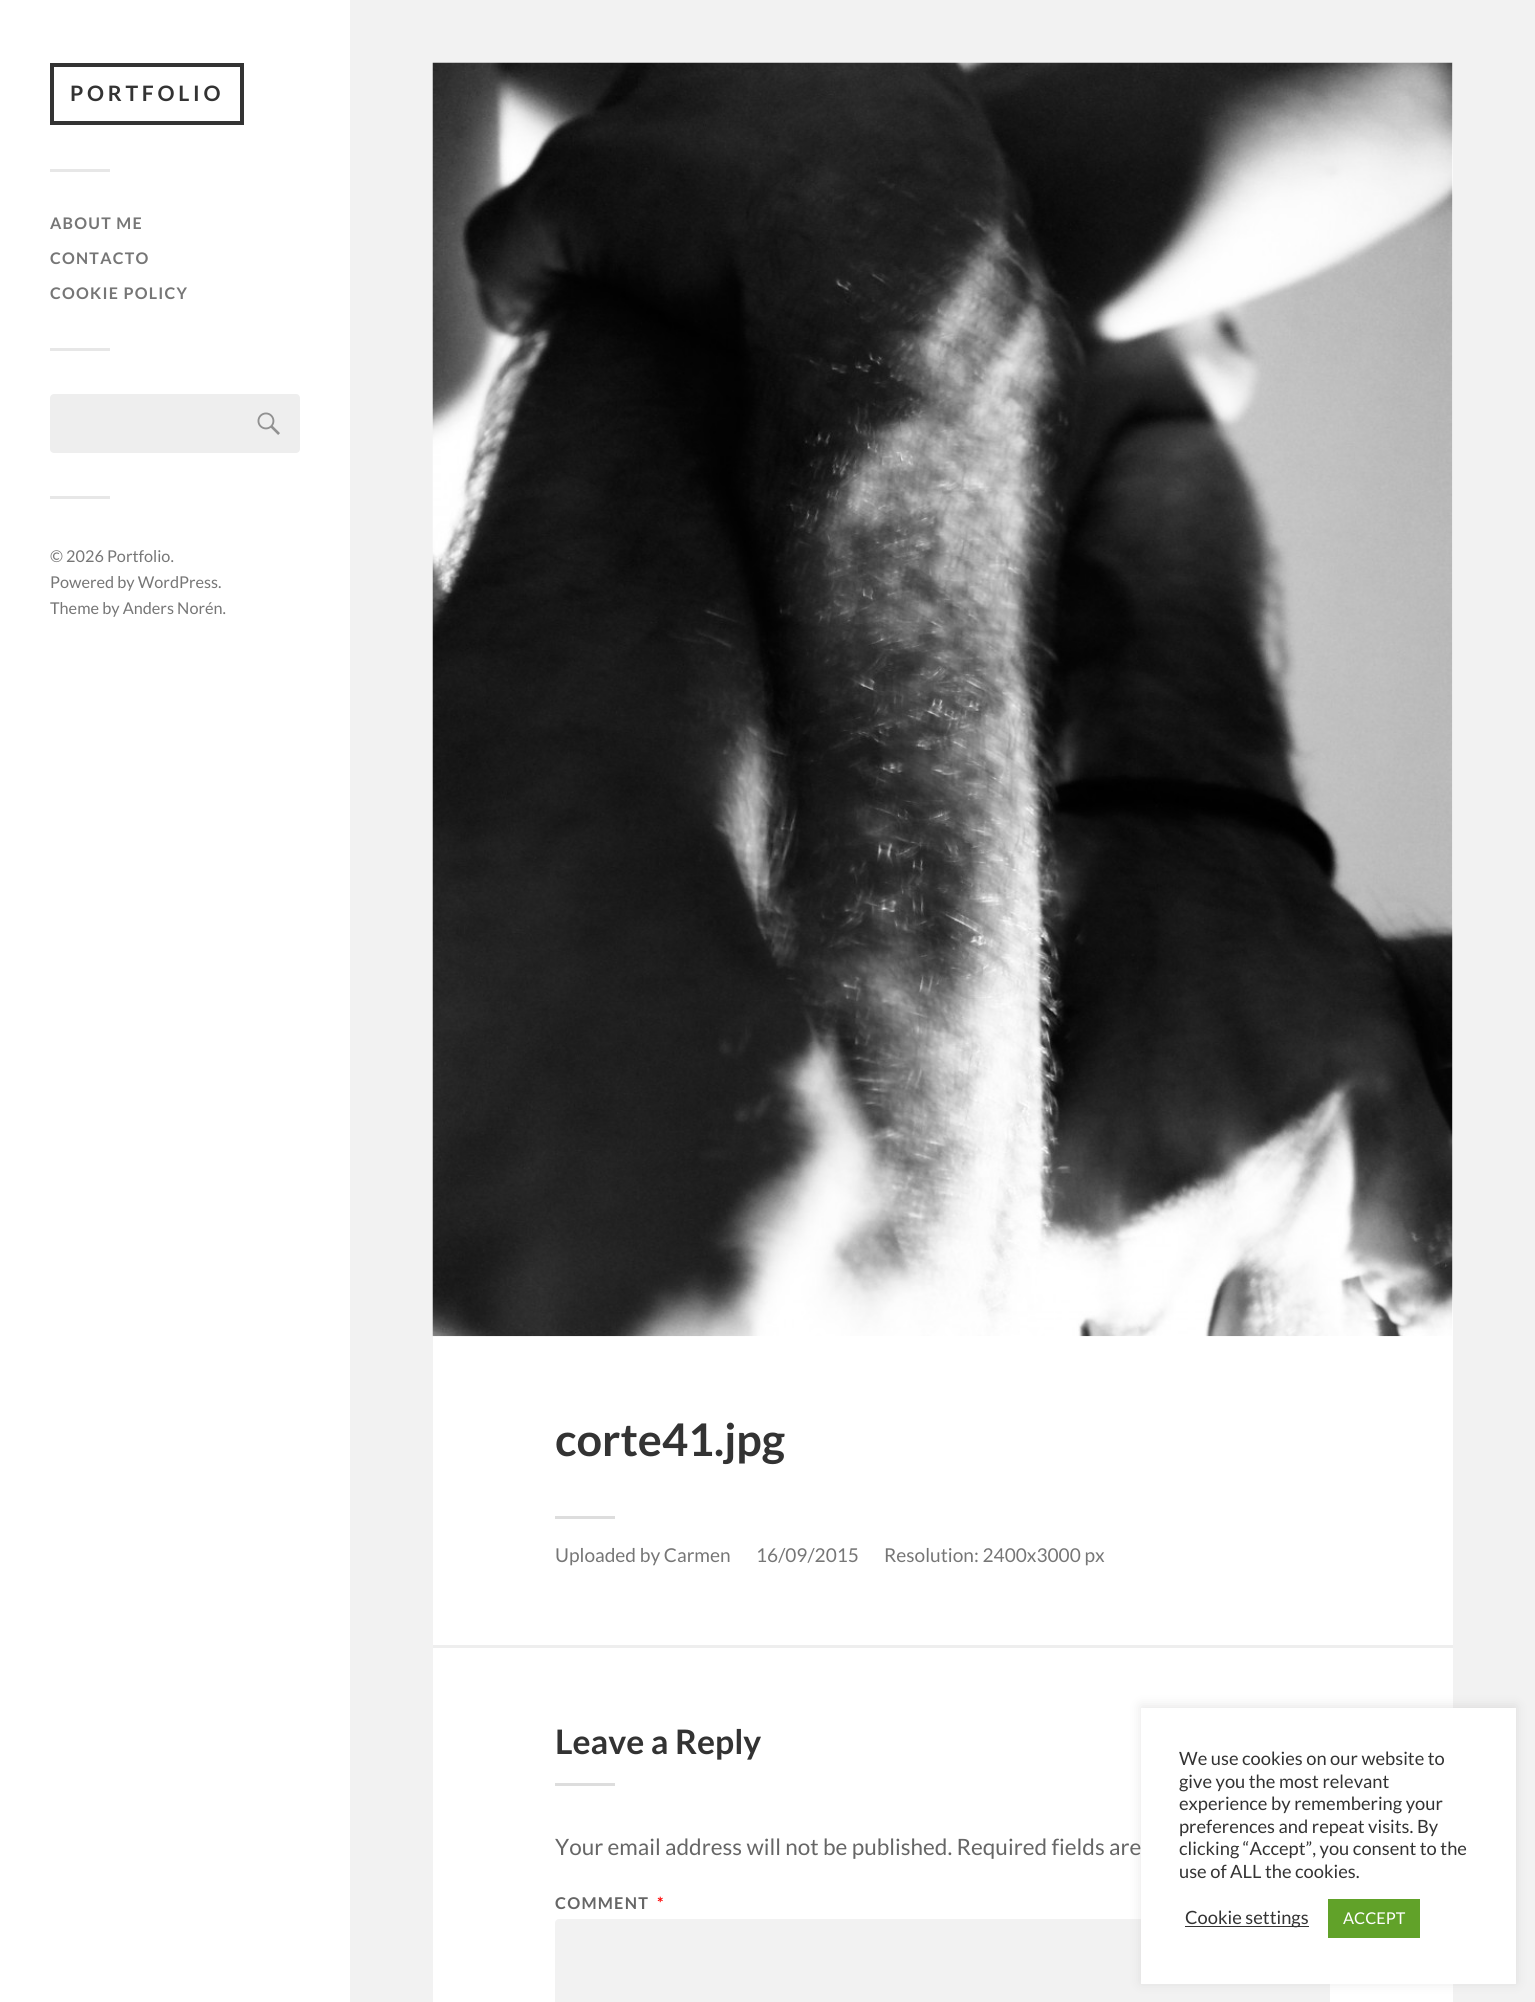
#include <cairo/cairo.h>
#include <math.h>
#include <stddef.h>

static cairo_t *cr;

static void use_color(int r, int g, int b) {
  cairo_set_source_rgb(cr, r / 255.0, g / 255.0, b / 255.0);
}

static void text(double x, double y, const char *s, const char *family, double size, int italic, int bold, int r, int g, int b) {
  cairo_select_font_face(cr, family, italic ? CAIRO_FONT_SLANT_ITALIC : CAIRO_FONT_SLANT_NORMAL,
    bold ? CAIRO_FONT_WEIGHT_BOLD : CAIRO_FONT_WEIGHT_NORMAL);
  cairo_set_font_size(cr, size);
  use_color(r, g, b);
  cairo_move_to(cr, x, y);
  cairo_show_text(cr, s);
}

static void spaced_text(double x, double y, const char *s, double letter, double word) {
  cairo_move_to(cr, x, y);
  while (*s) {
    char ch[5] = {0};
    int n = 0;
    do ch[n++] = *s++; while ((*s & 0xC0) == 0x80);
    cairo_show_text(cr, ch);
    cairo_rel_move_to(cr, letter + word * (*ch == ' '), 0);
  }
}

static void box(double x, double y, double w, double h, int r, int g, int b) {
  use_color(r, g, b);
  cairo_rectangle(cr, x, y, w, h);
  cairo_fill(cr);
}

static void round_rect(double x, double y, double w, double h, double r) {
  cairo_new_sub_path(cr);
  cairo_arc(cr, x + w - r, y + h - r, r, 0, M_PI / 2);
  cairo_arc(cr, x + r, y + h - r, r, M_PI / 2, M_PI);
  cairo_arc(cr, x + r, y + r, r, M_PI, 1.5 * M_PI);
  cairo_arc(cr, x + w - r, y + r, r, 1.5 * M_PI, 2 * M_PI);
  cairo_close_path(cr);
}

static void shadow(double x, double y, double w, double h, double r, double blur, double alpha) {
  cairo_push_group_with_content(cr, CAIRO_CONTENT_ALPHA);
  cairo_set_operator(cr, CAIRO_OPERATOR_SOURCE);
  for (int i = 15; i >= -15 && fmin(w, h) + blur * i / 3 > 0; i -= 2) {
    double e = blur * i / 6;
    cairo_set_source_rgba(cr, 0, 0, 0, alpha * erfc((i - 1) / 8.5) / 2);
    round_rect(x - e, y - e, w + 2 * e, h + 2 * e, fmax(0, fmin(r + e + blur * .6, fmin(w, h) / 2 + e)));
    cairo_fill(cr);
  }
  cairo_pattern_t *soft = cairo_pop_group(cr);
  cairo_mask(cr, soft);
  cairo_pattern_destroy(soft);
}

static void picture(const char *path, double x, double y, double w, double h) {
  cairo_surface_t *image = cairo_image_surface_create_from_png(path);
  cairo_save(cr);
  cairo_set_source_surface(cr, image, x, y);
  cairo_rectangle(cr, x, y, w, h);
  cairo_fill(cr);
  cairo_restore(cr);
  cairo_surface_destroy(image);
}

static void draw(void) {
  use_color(242, 242, 242);
  cairo_paint(cr);
  box(0, 0, 350, 2002, 255, 255, 255);
  cairo_rectangle(cr, 52, 65, 190, 58);
  use_color(51, 51, 51);
  cairo_set_line_width(cr, 4);
  cairo_stroke(cr);
  box(50, 169, 60, 3, 231, 231, 231);
  box(50, 348, 60, 3, 231, 231, 231);
  use_color(238, 238, 238);
  round_rect(50, 394, 250, 59, 4);
  cairo_fill(cr);
  picture("img_01.png", 257, 412, 23, 23);
  box(50, 496, 60, 3, 231, 231, 231);
  box(433, 63, 1020, 1939, 255, 255, 255);
  picture("img_02.png", 432, 62, 1021, 1275);
  box(555, 1516, 60, 3, 221, 221, 221);
  box(433, 1645, 1020, 3, 238, 238, 238);
  box(555, 1783, 60, 3, 221, 221, 221);
  use_color(242, 242, 242);
  round_rect(555, 1919, 775, 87, 4);
  cairo_fill(cr);
  use_color(172, 171, 171);
  shadow(1141, 1706, 375, 277, 0, 6, 0.3);
  box(1141, 1708, 375, 276, 255, 255, 255);
  box(1185, 1926, 124, 1, 51, 51, 51);
  box(1328, 1899, 92, 39, 97, 162, 41);
  cairo_select_font_face(cr, "Lato", CAIRO_FONT_SLANT_NORMAL, CAIRO_FONT_WEIGHT_BOLD);
  cairo_set_font_size(cr, 21.25);
  use_color(51, 51, 51);
  spaced_text(70, 101, "PORTFOLIO", 3.75, 0);
  cairo_set_font_size(cr, 16);
  use_color(118, 118, 118);
  spaced_text(50, 229, "ABOUT ME", 1.25, 0);
  spaced_text(50, 264, "CONTACTO", 1.25, 0);
  spaced_text(50, 299, "COOKIE POLICY", 1.25, 0);
  text(50, 562, "© 2026 Portfolio.", "Lato", 16.25, 0, 0, 118, 118, 118);
  text(50, 588, "Powered by WordPress.", "Lato", 16.25, 0, 0, 118, 118, 118);
  text(50, 614, "Theme by Anders Norén.", "Lato", 16.25, 0, 0, 118, 118, 118);
  text(555, 1456, "corte41.jpg", "Lato", 45, 0, 1, 51, 51, 51);
  text(555, 1562, "Uploaded by Carmen", "Lato", 19.1, 0, 0, 118, 118, 118);
  text(756, 1562, "16/09/2015", "Lato", 19.1, 0, 0, 118, 118, 118);
  text(884, 1562, "Resolution: 2400x3000 px", "Lato", 19.1, 0, 0, 118, 118, 118);
  text(555, 1754, "Leave a Reply", "Lato", 33.75, 0, 1, 51, 51, 51);
  text(555, 1855, "Your email address will not be published. Required fields are", "Lato", 22.5, 0, 0, 102, 102, 102);
  cairo_select_font_face(cr, "Lato", CAIRO_FONT_SLANT_NORMAL, CAIRO_FONT_WEIGHT_BOLD);
  cairo_set_font_size(cr, 16.25);
  spaced_text(555, 1909, "COMMENT", 1.25, 0);
  use_color(255, 0, 0);
  spaced_text(657, 1909, "*", 1.25, 0);
  text(1179, 1765, "We use cookies on our website to", "Lato", 18.3, 0, 0, 51, 51, 51);
  text(1179, 1788, "give you the most relevant", "Lato", 18.3, 0, 0, 51, 51, 51);
  text(1179, 1810, "experience by remembering your", "Lato", 18.3, 0, 0, 51, 51, 51);
  text(1179, 1833, "preferences and repeat visits. By", "Lato", 18.3, 0, 0, 51, 51, 51);
  text(1179, 1855, "clicking “Accept”, you consent to the", "Lato", 18.3, 0, 0, 51, 51, 51);
  text(1179, 1878, "use of ALL the cookies.", "Lato", 18.3, 0, 0, 51, 51, 51);
  text(1185, 1924, "Cookie settings", "Lato", 18.3, 0, 0, 51, 51, 51);
  text(1343, 1924, "ACCEPT", "Lato", 16.25, 0, 0, 255, 255, 255);
}

int main(void) {
  cairo_surface_t *surface = cairo_image_surface_create(CAIRO_FORMAT_RGB24, 1535, 2002);
  cr = cairo_create(surface);
  cairo_font_options_t *options = cairo_font_options_create();
  cairo_font_options_set_hint_metrics(options, CAIRO_HINT_METRICS_OFF);
  cairo_font_options_set_hint_style(options, CAIRO_HINT_STYLE_NONE);
  cairo_set_font_options(cr, options);
  cairo_set_miter_limit(cr, 4);
  draw();
  cairo_surface_write_to_png(surface, "out.png");
  cairo_font_options_destroy(options);
  cairo_destroy(cr);
  cairo_surface_destroy(surface);
  return 0;
}
